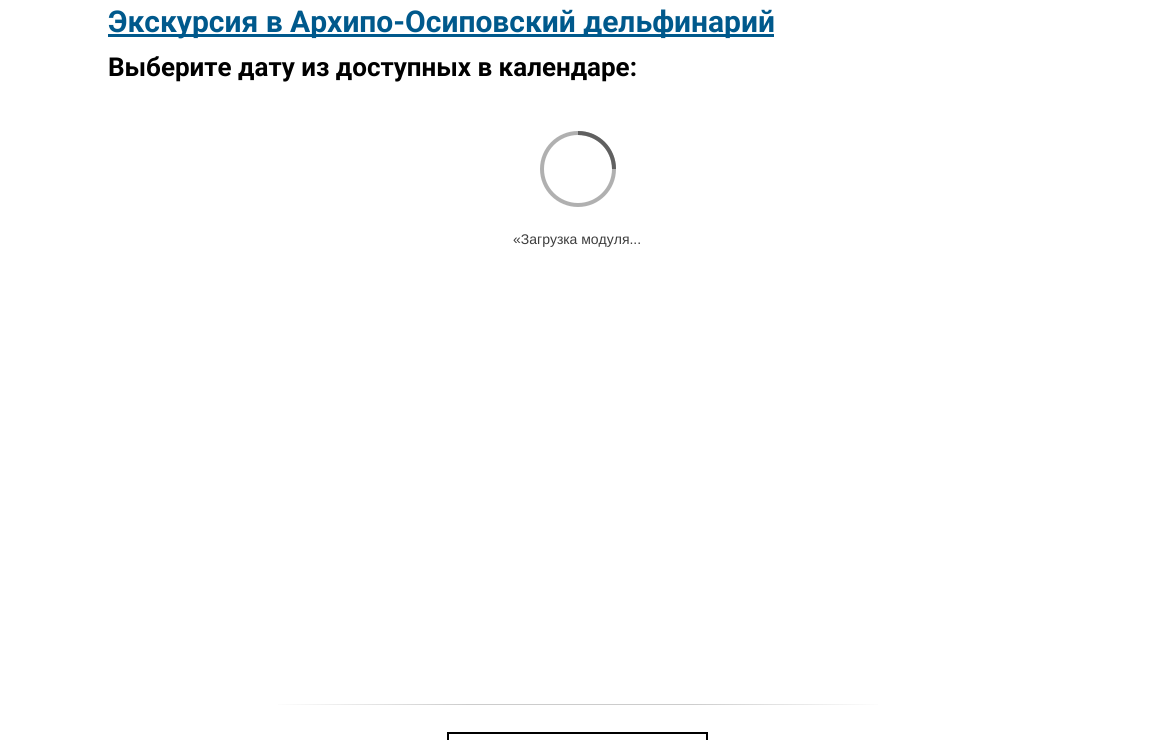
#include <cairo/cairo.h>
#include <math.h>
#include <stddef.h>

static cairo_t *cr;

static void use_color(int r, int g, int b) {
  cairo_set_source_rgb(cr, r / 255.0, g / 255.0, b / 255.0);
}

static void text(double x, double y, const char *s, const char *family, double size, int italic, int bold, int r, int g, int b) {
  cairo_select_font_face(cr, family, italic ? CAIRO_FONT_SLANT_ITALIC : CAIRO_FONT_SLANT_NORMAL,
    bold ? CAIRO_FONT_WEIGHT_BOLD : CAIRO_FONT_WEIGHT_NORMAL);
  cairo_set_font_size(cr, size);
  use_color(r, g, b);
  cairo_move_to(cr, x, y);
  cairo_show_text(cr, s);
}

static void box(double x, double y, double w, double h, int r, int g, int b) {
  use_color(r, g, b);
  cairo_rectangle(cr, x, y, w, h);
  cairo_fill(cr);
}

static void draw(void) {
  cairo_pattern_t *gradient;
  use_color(255, 255, 255);
  cairo_paint(cr);
  box(108, 34, 666, 3, 0, 89, 140);
  cairo_arc(cr, 578, 169, 36, 0, 2 * M_PI);
  use_color(176, 176, 176);
  cairo_set_line_width(cr, 4);
  cairo_stroke(cr);
  cairo_new_path(cr);
  cairo_move_to(cr, 614, 169);
  cairo_curve_to(cr, 614, 149, 598, 133, 578, 133);
  use_color(96, 96, 96);
  cairo_stroke(cr);
  gradient = cairo_pattern_create_linear(468, 705, 268, 705);
  cairo_pattern_add_color_stop_rgba(gradient, 0, 0.8, 0.8, 0.8, 1);
  cairo_pattern_add_color_stop_rgba(gradient, 1, 1, 1, 1, 1);
  cairo_set_source(cr, gradient);
  cairo_pattern_destroy(gradient);
  cairo_rectangle(cr, 278, 704, 190, 1);
  cairo_fill(cr);
  box(468, 704, 220, 1, 204, 204, 204);
  gradient = cairo_pattern_create_linear(688, 705, 888, 705);
  cairo_pattern_add_color_stop_rgba(gradient, 0, 0.8, 0.8, 0.8, 1);
  cairo_pattern_add_color_stop_rgba(gradient, 1, 1, 1, 1, 1);
  cairo_set_source(cr, gradient);
  cairo_pattern_destroy(gradient);
  cairo_rectangle(cr, 688, 704, 190, 1);
  cairo_fill(cr);
  cairo_rectangle(cr, 448, 733, 259, 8);
  use_color(0, 0, 0);
  cairo_set_line_width(cr, 2);
  cairo_stroke(cr);
  text(108, 32, "Экскурсия в Архипо-Осиповский дельфинарий", "Roboto", 30, 0, 1, 0, 89, 140);
  text(108, 76, "Выберите дату из доступных в календаре:", "Roboto", 26, 0, 1, 0, 0, 0);
  text(513, 244, "«Загрузка модуля...", "Liberation Sans", 14, 0, 0, 61, 61, 61);
}

int main(void) {
  cairo_surface_t *surface = cairo_image_surface_create(CAIRO_FORMAT_RGB24, 1155, 740);
  cr = cairo_create(surface);
  cairo_font_options_t *options = cairo_font_options_create();
  cairo_font_options_set_hint_metrics(options, CAIRO_HINT_METRICS_OFF);
  cairo_font_options_set_hint_style(options, CAIRO_HINT_STYLE_NONE);
  cairo_set_font_options(cr, options);
  cairo_set_miter_limit(cr, 4);
  draw();
  cairo_surface_write_to_png(surface, "out.png");
  cairo_font_options_destroy(options);
  cairo_destroy(cr);
  cairo_surface_destroy(surface);
  return 0;
}
